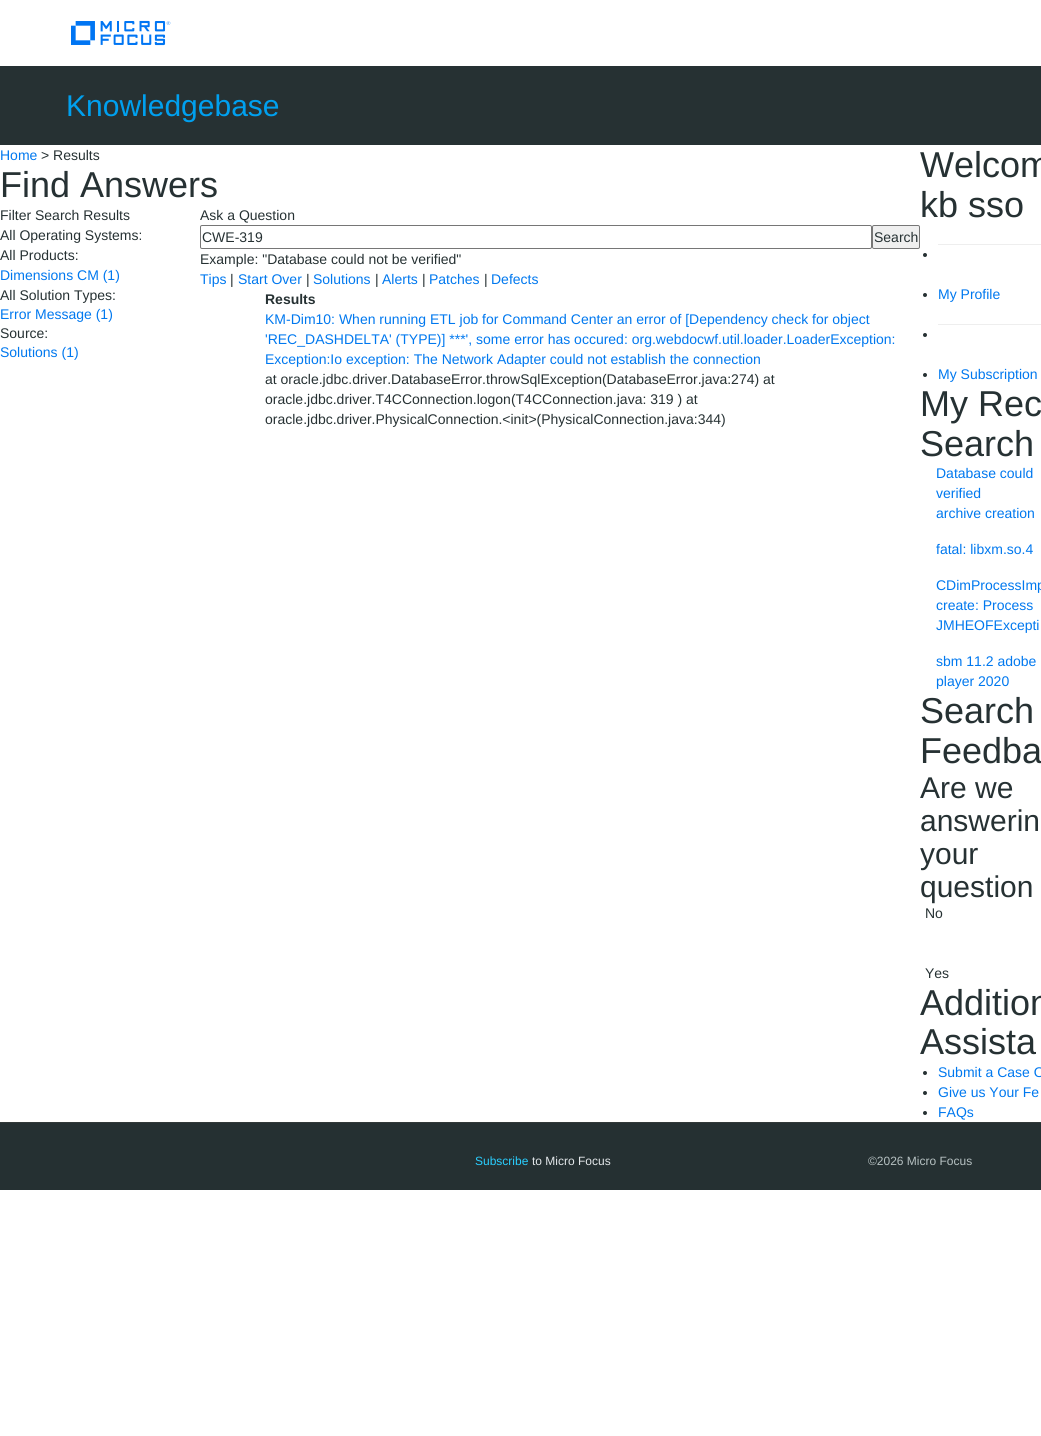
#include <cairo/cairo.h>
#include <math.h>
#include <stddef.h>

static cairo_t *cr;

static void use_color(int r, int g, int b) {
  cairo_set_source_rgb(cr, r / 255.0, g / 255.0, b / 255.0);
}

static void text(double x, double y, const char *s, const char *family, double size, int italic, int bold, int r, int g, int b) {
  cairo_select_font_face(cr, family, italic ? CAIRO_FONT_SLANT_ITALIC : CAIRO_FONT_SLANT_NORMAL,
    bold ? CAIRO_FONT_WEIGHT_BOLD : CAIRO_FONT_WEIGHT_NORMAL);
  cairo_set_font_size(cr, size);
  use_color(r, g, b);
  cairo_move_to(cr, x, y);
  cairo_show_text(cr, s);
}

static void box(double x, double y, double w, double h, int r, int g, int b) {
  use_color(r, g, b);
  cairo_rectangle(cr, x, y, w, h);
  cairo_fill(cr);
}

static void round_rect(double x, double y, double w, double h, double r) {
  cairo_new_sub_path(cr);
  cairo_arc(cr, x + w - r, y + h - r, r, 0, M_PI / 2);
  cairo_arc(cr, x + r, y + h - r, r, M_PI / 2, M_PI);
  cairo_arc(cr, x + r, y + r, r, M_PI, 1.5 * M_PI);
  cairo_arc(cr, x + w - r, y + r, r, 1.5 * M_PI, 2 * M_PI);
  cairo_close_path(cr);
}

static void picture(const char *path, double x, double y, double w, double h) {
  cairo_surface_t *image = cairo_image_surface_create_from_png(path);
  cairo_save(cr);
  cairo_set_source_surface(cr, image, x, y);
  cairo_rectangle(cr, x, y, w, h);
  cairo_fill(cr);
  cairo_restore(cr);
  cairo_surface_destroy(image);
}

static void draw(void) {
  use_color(255, 255, 255);
  cairo_paint(cr);
  picture("img_01.png", 71, 20, 100, 26);
  box(0, 66, 1041, 79, 38, 49, 51);
  round_rect(200.5, 225.5, 671, 23, 1.5);
  use_color(118, 118, 118);
  cairo_set_line_width(cr, 1);
  cairo_stroke(cr);
  use_color(239, 239, 239);
  round_rect(872.5, 225.5, 47, 23, 1.5);
  cairo_fill_preserve(cr);
  use_color(118, 118, 118);
  cairo_stroke(cr);
  box(938, 244, 103, 1, 238, 238, 238);
  use_color(38, 49, 51);
  cairo_arc(cr, 925, 255, 2, 0, 2 * M_PI);
  cairo_fill(cr);
  cairo_arc(cr, 925, 295, 2, 0, 2 * M_PI);
  cairo_fill(cr);
  box(938, 324, 103, 1, 238, 238, 238);
  use_color(38, 49, 51);
  cairo_arc(cr, 925, 335, 2, 0, 2 * M_PI);
  cairo_fill(cr);
  cairo_arc(cr, 925, 375, 2, 0, 2 * M_PI);
  cairo_fill(cr);
  cairo_arc(cr, 925, 1073, 2, 0, 2 * M_PI);
  cairo_fill(cr);
  cairo_arc(cr, 925, 1093, 2, 0, 2 * M_PI);
  cairo_fill(cr);
  cairo_arc(cr, 925, 1113, 2, 0, 2 * M_PI);
  cairo_fill(cr);
  box(0, 1122, 1041, 1, 50, 57, 57);
  box(0, 1123, 1041, 67, 37, 48, 50);
  text(66, 116, "Knowledgebase", "Liberation Sans", 30, 0, 0, 0, 160, 239);
  text(0, 160, "Home", "Liberation Sans", 14, 0, 0, 0, 120, 239);
  text(41, 160, "> Results", "Liberation Sans", 14, 0, 0, 38, 49, 51);
  text(0, 197, "Find Answers", "Liberation Sans", 36, 0, 0, 38, 49, 51);
  text(0, 220, "Filter Search Results", "Liberation Sans", 14, 0, 0, 38, 49, 51);
  text(0, 240, "All Operating Systems:", "Liberation Sans", 14, 0, 0, 38, 49, 51);
  text(0, 260, "All Products:", "Liberation Sans", 14, 0, 0, 38, 49, 51);
  text(0, 280, "Dimensions CM (1)", "Liberation Sans", 14, 0, 0, 0, 120, 239);
  text(0, 300, "All Solution Types:", "Liberation Sans", 14, 0, 0, 38, 49, 51);
  text(0, 319, "Error Message (1)", "Liberation Sans", 14, 0, 0, 0, 120, 239);
  text(0, 338, "Source:", "Liberation Sans", 14, 0, 0, 38, 49, 51);
  text(0, 357, "Solutions (1)", "Liberation Sans", 14, 0, 0, 0, 120, 239);
  text(200, 220, "Ask a Question", "Liberation Sans", 14, 0, 0, 38, 49, 51);
  text(202, 242, "CWE-319", "Liberation Sans", 14, 0, 0, 38, 49, 51);
  text(874, 242, "Search", "Liberation Sans", 14, 0, 0, 38, 49, 51);
  text(200, 264, "Example: \"Database could not be verified\"", "Liberation Sans", 14, 0, 0, 38, 49, 51);
  text(200, 284, "Tips", "Liberation Sans", 14, 0, 0, 0, 120, 239);
  text(230, 284, "|", "Liberation Sans", 14, 0, 0, 38, 49, 51);
  text(238, 284, "Start Over", "Liberation Sans", 14, 0, 0, 0, 120, 239);
  text(306, 284, "|", "Liberation Sans", 14, 0, 0, 38, 49, 51);
  text(313, 284, "Solutions", "Liberation Sans", 14, 0, 0, 0, 120, 239);
  text(375, 284, "|", "Liberation Sans", 14, 0, 0, 38, 49, 51);
  text(382, 284, "Alerts", "Liberation Sans", 14, 0, 0, 0, 120, 239);
  text(422, 284, "|", "Liberation Sans", 14, 0, 0, 38, 49, 51);
  text(429, 284, "Patches", "Liberation Sans", 14, 0, 0, 0, 120, 239);
  text(484, 284, "|", "Liberation Sans", 14, 0, 0, 38, 49, 51);
  text(491, 284, "Defects", "Liberation Sans", 14, 0, 0, 0, 120, 239);
  text(265, 304, "Results", "Liberation Sans", 14, 0, 1, 38, 49, 51);
  text(265, 324, "KM-Dim10: When running ETL job for Command Center an error of [Dependency check for object", "Liberation Sans", 14, 0, 0, 0, 120, 239);
  text(265, 344, "'REC_DASHDELTA' (TYPE)] ***', some error has occured: org.webdocwf.util.loader.LoaderException:", "Liberation Sans", 14, 0, 0, 0, 120, 239);
  text(265, 364, "Exception:Io exception: The Network Adapter could not establish the connection", "Liberation Sans", 14, 0, 0, 0, 120, 239);
  text(265, 384, "at oracle.jdbc.driver.DatabaseError.throwSqlException(DatabaseError.java:274) at", "Liberation Sans", 14, 0, 0, 38, 49, 51);
  text(265, 404, "oracle.jdbc.driver.T4CConnection.logon(T4CConnection.java: 319 ) at", "Liberation Sans", 14, 0, 0, 38, 49, 51);
  text(265, 424, "oracle.jdbc.driver.PhysicalConnection.<init>(PhysicalConnection.java:344)", "Liberation Sans", 14, 0, 0, 38, 49, 51);
  text(920, 177, "Welcom", "Liberation Sans", 36, 0, 0, 38, 49, 51);
  text(920, 217, "kb sso", "Liberation Sans", 36, 0, 0, 38, 49, 51);
  text(938, 299, "My Profile", "Liberation Sans", 14, 0, 0, 0, 120, 239);
  text(938, 379, "My Subscription", "Liberation Sans", 14, 0, 0, 0, 120, 239);
  text(920, 416, "My Rec", "Liberation Sans", 36, 0, 0, 38, 49, 51);
  text(920, 456, "Search", "Liberation Sans", 36, 0, 0, 38, 49, 51);
  text(936, 478, "Database could", "Liberation Sans", 14, 0, 0, 0, 120, 239);
  text(936, 498, "verified", "Liberation Sans", 14, 0, 0, 0, 120, 239);
  text(936, 518, "archive creation", "Liberation Sans", 14, 0, 0, 0, 120, 239);
  text(936, 554, "fatal: libxm.so.4", "Liberation Sans", 14, 0, 0, 0, 120, 239);
  text(936, 590, "CDimProcessImp", "Liberation Sans", 14, 0, 0, 0, 120, 239);
  text(936, 610, "create: Process", "Liberation Sans", 14, 0, 0, 0, 120, 239);
  text(936, 630, "JMHEOFExcepti", "Liberation Sans", 14, 0, 0, 0, 120, 239);
  text(936, 666, "sbm 11.2 adobe", "Liberation Sans", 14, 0, 0, 0, 120, 239);
  text(936, 686, "player 2020", "Liberation Sans", 14, 0, 0, 0, 120, 239);
  text(920, 723, "Search", "Liberation Sans", 36, 0, 0, 38, 49, 51);
  text(920, 763, "Feedba", "Liberation Sans", 36, 0, 0, 38, 49, 51);
  text(920, 798, "Are we", "Liberation Sans", 30, 0, 0, 38, 49, 51);
  text(920, 831, "answerin", "Liberation Sans", 30, 0, 0, 38, 49, 51);
  text(920, 864, "your", "Liberation Sans", 30, 0, 0, 38, 49, 51);
  text(920, 897, "question", "Liberation Sans", 30, 0, 0, 38, 49, 51);
  text(925, 918, "No", "Liberation Sans", 14, 0, 0, 38, 49, 51);
  text(925, 978, "Yes", "Liberation Sans", 14, 0, 0, 38, 49, 51);
  text(920, 1015, "Addition", "Liberation Sans", 36, 0, 0, 38, 49, 51);
  text(920, 1054, "Assista", "Liberation Sans", 36, 0, 0, 38, 49, 51);
  text(938, 1077, "Submit a Case O", "Liberation Sans", 14, 0, 0, 0, 120, 239);
  text(938, 1097, "Give us Your Fe", "Liberation Sans", 14, 0, 0, 0, 120, 239);
  text(938, 1117, "FAQs", "Liberation Sans", 14, 0, 0, 0, 120, 239);
  text(475, 1165, "Subscribe", "Liberation Sans", 12, 0, 0, 41, 206, 255);
  text(532, 1165, "to Micro Focus", "Liberation Sans", 12, 0, 0, 227, 231, 234);
  text(868, 1165, "©2026 Micro Focus", "Liberation Sans", 12, 0, 0, 182, 193, 194);
}

int main(void) {
  cairo_surface_t *surface = cairo_image_surface_create(CAIRO_FORMAT_RGB24, 1041, 1436);
  cr = cairo_create(surface);
  cairo_font_options_t *options = cairo_font_options_create();
  cairo_font_options_set_hint_metrics(options, CAIRO_HINT_METRICS_OFF);
  cairo_font_options_set_hint_style(options, CAIRO_HINT_STYLE_NONE);
  cairo_set_font_options(cr, options);
  cairo_set_miter_limit(cr, 4);
  draw();
  cairo_surface_write_to_png(surface, "out.png");
  cairo_font_options_destroy(options);
  cairo_destroy(cr);
  cairo_surface_destroy(surface);
  return 0;
}
